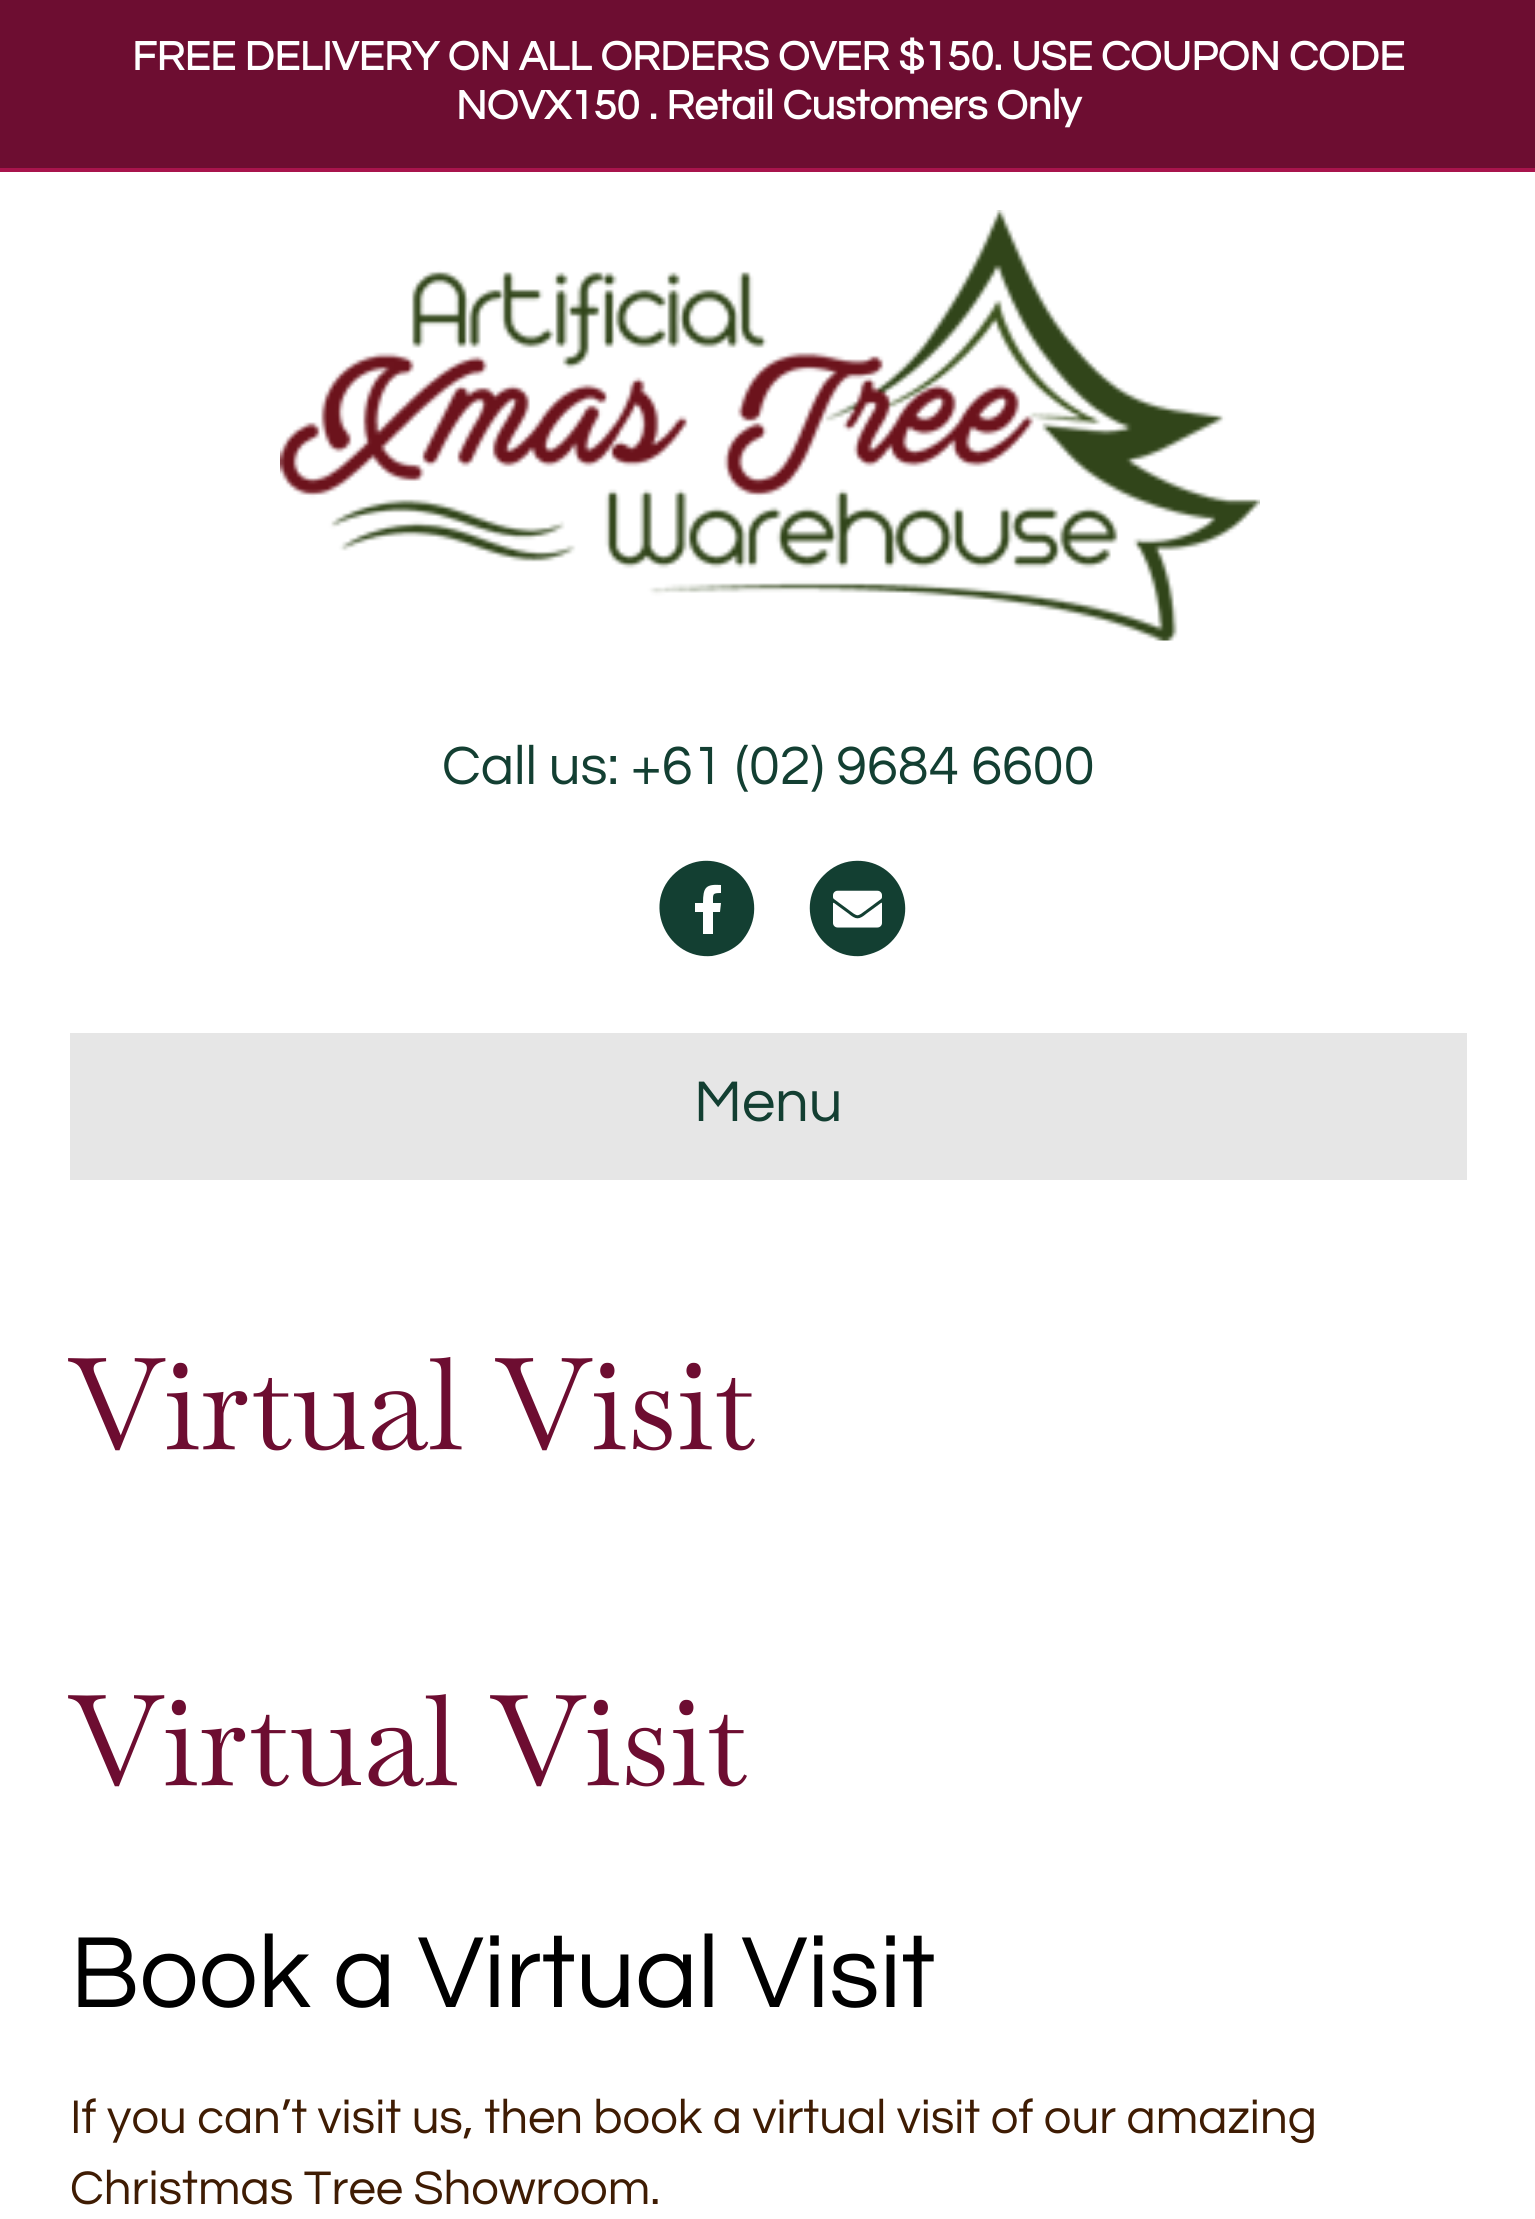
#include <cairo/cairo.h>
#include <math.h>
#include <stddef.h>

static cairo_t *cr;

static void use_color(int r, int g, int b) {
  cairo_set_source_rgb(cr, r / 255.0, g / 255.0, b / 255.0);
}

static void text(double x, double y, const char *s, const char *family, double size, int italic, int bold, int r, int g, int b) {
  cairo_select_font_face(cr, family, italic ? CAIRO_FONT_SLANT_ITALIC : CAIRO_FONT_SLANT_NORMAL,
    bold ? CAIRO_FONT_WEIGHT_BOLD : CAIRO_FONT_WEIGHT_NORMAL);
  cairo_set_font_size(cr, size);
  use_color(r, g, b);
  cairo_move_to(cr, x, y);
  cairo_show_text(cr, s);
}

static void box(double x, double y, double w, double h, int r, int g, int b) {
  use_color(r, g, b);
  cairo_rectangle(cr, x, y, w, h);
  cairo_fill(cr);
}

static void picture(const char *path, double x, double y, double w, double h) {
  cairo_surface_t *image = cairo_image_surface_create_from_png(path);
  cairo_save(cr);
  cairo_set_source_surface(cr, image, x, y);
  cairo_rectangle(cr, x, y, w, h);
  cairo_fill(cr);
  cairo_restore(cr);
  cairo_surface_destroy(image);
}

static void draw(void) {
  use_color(255, 255, 255);
  cairo_paint(cr);
  box(0, 0, 1535, 168, 109, 13, 49);
  box(0, 168, 1535, 4, 168, 20, 76);
  picture("img_01.png", 280, 210, 980, 431);
  use_color(19, 63, 50);
  cairo_new_path(cr);
  cairo_move_to(cr, 673, 875);
  cairo_curve_to(cr, 705, 843, 758, 869, 754, 913);
  cairo_curve_to(cr, 753, 924, 748, 934, 741, 942);
  cairo_curve_to(cr, 733, 950, 723, 954, 712, 956);
  cairo_curve_to(cr, 668, 960, 642, 906, 673, 875);
  cairo_close_path(cr);
  cairo_fill(cr);
  use_color(255, 255, 255);
  cairo_new_path(cr);
  cairo_move_to(cr, 720, 912);
  cairo_line_to(cr, 713, 912);
  cairo_line_to(cr, 713, 934);
  cairo_line_to(cr, 703, 934);
  cairo_line_to(cr, 703, 912);
  cairo_line_to(cr, 695, 912);
  cairo_line_to(cr, 695, 903);
  cairo_line_to(cr, 703, 903);
  cairo_curve_to(cr, 703, 887, 706, 884, 721, 885);
  cairo_line_to(cr, 721, 893);
  cairo_curve_to(cr, 712, 893, 713, 894, 713, 903);
  cairo_line_to(cr, 721, 903);
  cairo_close_path(cr);
  cairo_fill(cr);
  use_color(19, 63, 50);
  cairo_new_path(cr);
  cairo_move_to(cr, 824, 875);
  cairo_curve_to(cr, 832, 867, 842, 862, 853, 861);
  cairo_curve_to(cr, 897, 857, 923, 910, 891, 942);
  cairo_curve_to(cr, 883, 950, 873, 954, 862, 956);
  cairo_curve_to(cr, 818, 960, 792, 906, 824, 875);
  cairo_close_path(cr);
  cairo_fill(cr);
  picture("img_02.png", 833, 890, 49, 38);
  box(70, 1033, 1397, 147, 230, 230, 230);
  text(132, 70, "FREE DELIVERY ON ALL ORDERS OVER $150. USE COUPON CODE", "Questrial", 42, 0, 1, 255, 255, 255);
  text(456, 119, "NOVX150 . Retail Customers Only", "Questrial", 42, 0, 1, 255, 255, 255);
  text(442, 784, "Call us: +61 (02) 9684 6600", "Questrial", 56, 0, 0, 19, 63, 50);
  text(694, 1121, "Menu", "Questrial", 59.5, 0, 0, 19, 63, 50);
  text(70, 1449, "Virtual Visit", "Baskervville", 127.5, 0, 0, 109, 13, 49);
  text(70, 1785, "Virtual Visit", "Baskervville", 126, 0, 0, 109, 13, 49);
  text(70, 2007, "Book a Virtual Visit", "Questrial", 105, 0, 0, 0, 0, 0);
  text(70, 2133, "If you can’t visit us, then book a virtual visit of our amazing", "Questrial", 49, 0, 0, 63, 28, 3);
  text(70, 2204, "Christmas Tree Showroom.", "Questrial", 49, 0, 0, 63, 28, 3);
}

int main(void) {
  cairo_surface_t *surface = cairo_image_surface_create(CAIRO_FORMAT_RGB24, 1535, 2219);
  cr = cairo_create(surface);
  cairo_font_options_t *options = cairo_font_options_create();
  cairo_font_options_set_hint_metrics(options, CAIRO_HINT_METRICS_OFF);
  cairo_font_options_set_hint_style(options, CAIRO_HINT_STYLE_NONE);
  cairo_set_font_options(cr, options);
  cairo_set_miter_limit(cr, 4);
  draw();
  cairo_surface_write_to_png(surface, "out.png");
  cairo_font_options_destroy(options);
  cairo_destroy(cr);
  cairo_surface_destroy(surface);
  return 0;
}
